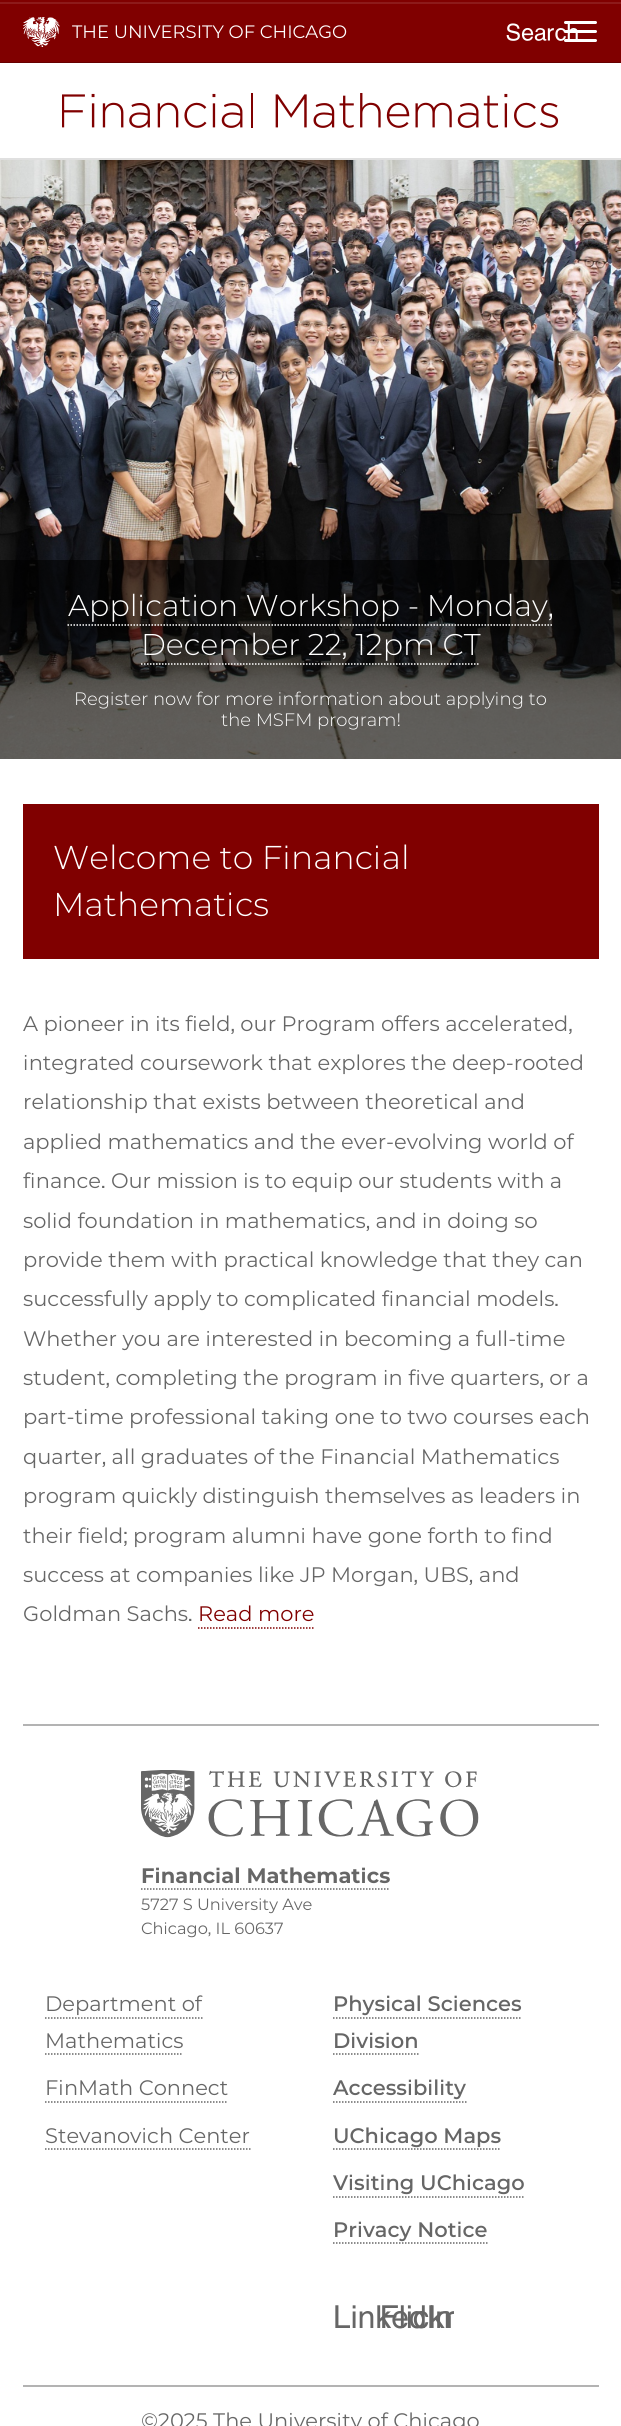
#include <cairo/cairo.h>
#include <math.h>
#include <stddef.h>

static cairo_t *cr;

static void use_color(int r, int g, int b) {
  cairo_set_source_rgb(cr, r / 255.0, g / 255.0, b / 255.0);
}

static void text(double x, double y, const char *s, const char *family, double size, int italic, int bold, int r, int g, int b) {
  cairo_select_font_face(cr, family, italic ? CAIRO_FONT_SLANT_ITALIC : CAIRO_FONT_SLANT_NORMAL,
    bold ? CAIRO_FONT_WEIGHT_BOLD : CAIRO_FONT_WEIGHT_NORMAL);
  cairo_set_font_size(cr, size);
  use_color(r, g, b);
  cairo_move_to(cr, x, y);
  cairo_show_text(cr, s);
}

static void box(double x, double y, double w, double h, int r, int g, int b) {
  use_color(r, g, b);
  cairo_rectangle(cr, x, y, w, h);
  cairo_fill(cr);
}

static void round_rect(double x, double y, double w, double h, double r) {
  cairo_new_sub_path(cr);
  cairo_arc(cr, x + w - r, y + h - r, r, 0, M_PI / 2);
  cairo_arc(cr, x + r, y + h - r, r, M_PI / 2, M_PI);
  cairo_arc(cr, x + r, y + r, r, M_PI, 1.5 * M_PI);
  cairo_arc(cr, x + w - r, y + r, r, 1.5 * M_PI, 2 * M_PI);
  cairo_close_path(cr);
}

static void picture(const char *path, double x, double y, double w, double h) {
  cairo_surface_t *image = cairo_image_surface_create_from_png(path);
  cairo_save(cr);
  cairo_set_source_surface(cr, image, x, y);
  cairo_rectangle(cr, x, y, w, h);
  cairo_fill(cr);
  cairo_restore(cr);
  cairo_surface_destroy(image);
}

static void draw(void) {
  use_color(255, 255, 255);
  cairo_paint(cr);
  box(0, 0, 621, 62, 128, 0, 0);
  box(0, 2, 621, 2, 141, 26, 26);
  box(0, 62, 621, 1, 103, 0, 0);
  picture("img_01.png", 23, 17, 37, 30);
  picture("img_02.png", 506, 23, 72, 18);
  use_color(255, 255, 255);
  round_rect(564, 21, 33, 3, 1.5);
  cairo_fill(cr);
  round_rect(564, 30, 33, 3, 1.5);
  cairo_fill(cr);
  round_rect(564, 39, 33, 3, 1.5);
  cairo_fill(cr);
  box(0, 158, 621, 2, 224, 224, 224);
  picture("img_03.png", 62, 93, 497, 35);
  picture("img_04.png", 0, 160, 621, 599);
  picture("img_05.png", 0, 160, 621, 599);
  cairo_set_source_rgba(cr, 0, 0, 0, 0.6);
  cairo_rectangle(cr, 0, 560, 621, 199);
  cairo_fill(cr);
  cairo_new_path(cr);
  cairo_move_to(cr, 67.5, 625);
  cairo_line_to(cr, 553.5, 625);
  use_color(255, 255, 255);
  cairo_set_line_width(cr, 1.5);
  cairo_set_dash(cr, (double[]){1.5, 1.5}, 2, 0);
  cairo_stroke(cr);
  cairo_new_path(cr);
  cairo_move_to(cr, 141, 664);
  cairo_line_to(cr, 480, 664);
  cairo_stroke(cr);
  box(23, 804, 576, 155, 128, 0, 0);
  cairo_new_path(cr);
  cairo_move_to(cr, 198, 1628);
  cairo_line_to(cr, 313.5, 1628);
  cairo_stroke(cr);
  box(23, 1724, 576, 2, 179, 179, 179);
  picture("img_06.png", 141, 1770, 338, 68);
  cairo_new_path(cr);
  cairo_move_to(cr, 141, 1889);
  cairo_line_to(cr, 390, 1889);
  use_color(102, 102, 102);
  cairo_stroke(cr);
  cairo_new_path(cr);
  cairo_move_to(cr, 45, 2018);
  cairo_line_to(cr, 202.5, 2018);
  cairo_stroke(cr);
  cairo_new_path(cr);
  cairo_move_to(cr, 45, 2054);
  cairo_line_to(cr, 183, 2054);
  cairo_stroke(cr);
  cairo_new_path(cr);
  cairo_move_to(cr, 45, 2102);
  cairo_line_to(cr, 228, 2102);
  cairo_stroke(cr);
  cairo_new_path(cr);
  cairo_move_to(cr, 45, 2149);
  cairo_line_to(cr, 250.5, 2149);
  cairo_stroke(cr);
  cairo_new_path(cr);
  cairo_move_to(cr, 333, 2018);
  cairo_line_to(cr, 522, 2018);
  cairo_stroke(cr);
  cairo_new_path(cr);
  cairo_move_to(cr, 333, 2054);
  cairo_line_to(cr, 418.5, 2054);
  cairo_stroke(cr);
  cairo_new_path(cr);
  cairo_move_to(cr, 333, 2102);
  cairo_line_to(cr, 466.5, 2102);
  cairo_stroke(cr);
  cairo_new_path(cr);
  cairo_move_to(cr, 333, 2149);
  cairo_line_to(cr, 501, 2149);
  cairo_stroke(cr);
  cairo_new_path(cr);
  cairo_move_to(cr, 333, 2197);
  cairo_line_to(cr, 525, 2197);
  cairo_stroke(cr);
  cairo_new_path(cr);
  cairo_move_to(cr, 333, 2243);
  cairo_line_to(cr, 487.5, 2243);
  cairo_stroke(cr);
  picture("img_07.png", 335, 2305, 116, 24);
  picture("img_08.png", 382, 2305, 72, 24);
  box(23, 2385, 576, 2, 179, 179, 179);
  text(72, 38, "THE UNIVERSITY OF CHICAGO", "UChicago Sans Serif", 18, 0, 0, 255, 255, 255);
  text(68, 616, "Application Workshop - Monday,", "UChicago Sans Serif Light", 30, 0, 0, 255, 255, 255);
  text(141, 655, "December 22, 12pm CT", "UChicago Sans Serif Light", 30, 0, 0, 255, 255, 255);
  text(74, 705, "Register now for more information about applying to", "UChicago Sans Serif Light", 18, 0, 0, 255, 255, 255);
  text(221, 726, "the MSFM program!", "UChicago Sans Serif Light", 18, 0, 0, 255, 255, 255);
  text(53, 869, "Welcome to Financial", "UChicago Sans Serif Light", 33, 0, 0, 255, 255, 255);
  text(53, 916, "Mathematics", "UChicago Sans Serif Light", 33, 0, 0, 255, 255, 255);
  text(23, 1031, "A pioneer in its field, our Program offers accelerated,", "UChicago Sans Serif", 21, 0, 0, 102, 102, 102);
  text(23, 1070, "integrated coursework that explores the deep-rooted", "UChicago Sans Serif", 21, 0, 0, 102, 102, 102);
  text(23, 1109, "relationship that exists between theoretical and", "UChicago Sans Serif", 21, 0, 0, 102, 102, 102);
  text(23, 1149, "applied mathematics and the ever-evolving world of", "UChicago Sans Serif", 21, 0, 0, 102, 102, 102);
  text(23, 1188, "finance. Our mission is to equip our students with a", "UChicago Sans Serif", 21, 0, 0, 102, 102, 102);
  text(23, 1228, "solid foundation in mathematics, and in doing so", "UChicago Sans Serif", 21, 0, 0, 102, 102, 102);
  text(23, 1267, "provide them with practical knowledge that they can", "UChicago Sans Serif", 21, 0, 0, 102, 102, 102);
  text(23, 1306, "successfully apply to complicated financial models.", "UChicago Sans Serif", 21, 0, 0, 102, 102, 102);
  text(23, 1346, "Whether you are interested in becoming a full-time", "UChicago Sans Serif", 21, 0, 0, 102, 102, 102);
  text(23, 1385, "student, completing the program in five quarters, or a", "UChicago Sans Serif", 21, 0, 0, 102, 102, 102);
  text(23, 1424, "part-time professional taking one to two courses each", "UChicago Sans Serif", 21, 0, 0, 102, 102, 102);
  text(23, 1464, "quarter, all graduates of the Financial Mathematics", "UChicago Sans Serif", 21, 0, 0, 102, 102, 102);
  text(23, 1503, "program quickly distinguish themselves as leaders in", "UChicago Sans Serif", 21, 0, 0, 102, 102, 102);
  text(23, 1543, "their field; program alumni have gone forth to find", "UChicago Sans Serif", 21, 0, 0, 102, 102, 102);
  text(23, 1582, "success at companies like JP Morgan, UBS, and", "UChicago Sans Serif", 21, 0, 0, 102, 102, 102);
  text(23, 1621, "Goldman Sachs.", "UChicago Sans Serif", 21, 0, 0, 102, 102, 102);
  text(198, 1621, "Read more", "UChicago Sans Serif", 21, 0, 0, 128, 0, 0);
  text(141, 1883, "Financial Mathematics", "UChicago Sans Serif", 21, 0, 1, 102, 102, 102);
  text(141, 1910, "5727 S University Ave", "UChicago Sans Serif", 16.25, 0, 0, 102, 102, 102);
  text(141, 1934, "Chicago, IL 60637", "UChicago Sans Serif", 16.25, 0, 0, 102, 102, 102);
  text(45, 2011, "Department of", "UChicago Sans Serif", 21, 0, 0, 102, 102, 102);
  text(45, 2048, "Mathematics", "UChicago Sans Serif", 21, 0, 0, 102, 102, 102);
  text(45, 2095, "FinMath Connect", "UChicago Sans Serif", 21, 0, 0, 102, 102, 102);
  text(45, 2143, "Stevanovich Center", "UChicago Sans Serif", 21, 0, 0, 102, 102, 102);
  text(333, 2011, "Physical Sciences", "UChicago Sans Serif SemiBold", 21, 0, 0, 102, 102, 102);
  text(333, 2048, "Division", "UChicago Sans Serif SemiBold", 21, 0, 0, 102, 102, 102);
  text(333, 2095, "Accessibility", "UChicago Sans Serif SemiBold", 21, 0, 0, 102, 102, 102);
  text(333, 2143, "UChicago Maps", "UChicago Sans Serif SemiBold", 21, 0, 0, 102, 102, 102);
  text(333, 2190, "Visiting UChicago", "UChicago Sans Serif SemiBold", 21, 0, 0, 102, 102, 102);
  text(333, 2237, "Privacy Notice", "UChicago Sans Serif SemiBold", 21, 0, 0, 102, 102, 102);
  text(141, 2428, "©2025 The University of Chicago", "UChicago Sans Serif", 21, 0, 0, 102, 102, 102);
}

int main(void) {
  cairo_surface_t *surface = cairo_image_surface_create(CAIRO_FORMAT_RGB24, 621, 2426);
  cr = cairo_create(surface);
  cairo_font_options_t *options = cairo_font_options_create();
  cairo_font_options_set_hint_metrics(options, CAIRO_HINT_METRICS_OFF);
  cairo_font_options_set_hint_style(options, CAIRO_HINT_STYLE_NONE);
  cairo_set_font_options(cr, options);
  cairo_set_miter_limit(cr, 4);
  draw();
  cairo_surface_write_to_png(surface, "out.png");
  cairo_font_options_destroy(options);
  cairo_destroy(cr);
  cairo_surface_destroy(surface);
  return 0;
}
